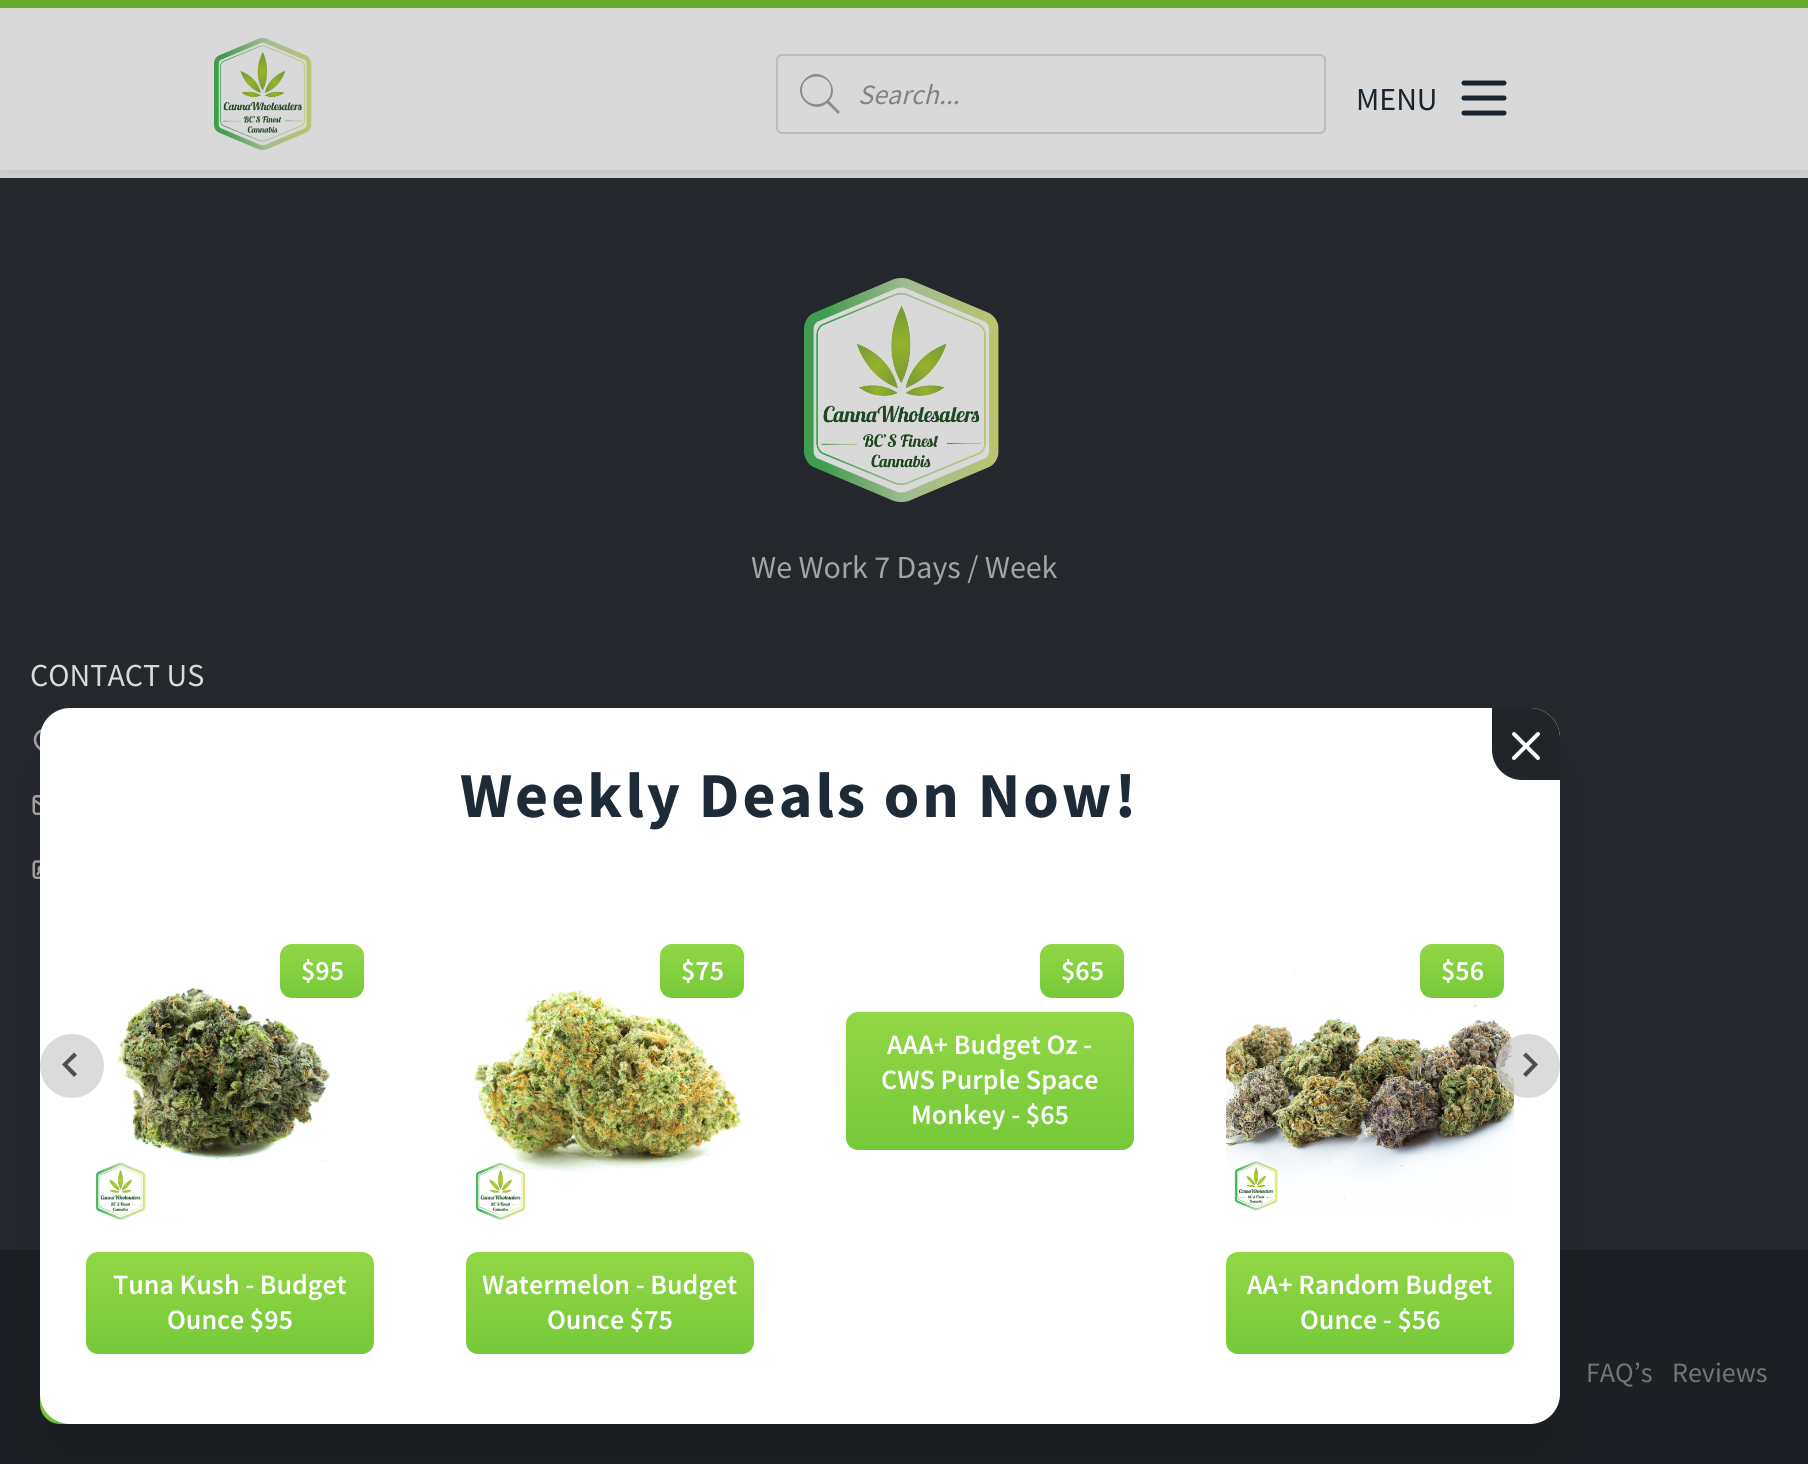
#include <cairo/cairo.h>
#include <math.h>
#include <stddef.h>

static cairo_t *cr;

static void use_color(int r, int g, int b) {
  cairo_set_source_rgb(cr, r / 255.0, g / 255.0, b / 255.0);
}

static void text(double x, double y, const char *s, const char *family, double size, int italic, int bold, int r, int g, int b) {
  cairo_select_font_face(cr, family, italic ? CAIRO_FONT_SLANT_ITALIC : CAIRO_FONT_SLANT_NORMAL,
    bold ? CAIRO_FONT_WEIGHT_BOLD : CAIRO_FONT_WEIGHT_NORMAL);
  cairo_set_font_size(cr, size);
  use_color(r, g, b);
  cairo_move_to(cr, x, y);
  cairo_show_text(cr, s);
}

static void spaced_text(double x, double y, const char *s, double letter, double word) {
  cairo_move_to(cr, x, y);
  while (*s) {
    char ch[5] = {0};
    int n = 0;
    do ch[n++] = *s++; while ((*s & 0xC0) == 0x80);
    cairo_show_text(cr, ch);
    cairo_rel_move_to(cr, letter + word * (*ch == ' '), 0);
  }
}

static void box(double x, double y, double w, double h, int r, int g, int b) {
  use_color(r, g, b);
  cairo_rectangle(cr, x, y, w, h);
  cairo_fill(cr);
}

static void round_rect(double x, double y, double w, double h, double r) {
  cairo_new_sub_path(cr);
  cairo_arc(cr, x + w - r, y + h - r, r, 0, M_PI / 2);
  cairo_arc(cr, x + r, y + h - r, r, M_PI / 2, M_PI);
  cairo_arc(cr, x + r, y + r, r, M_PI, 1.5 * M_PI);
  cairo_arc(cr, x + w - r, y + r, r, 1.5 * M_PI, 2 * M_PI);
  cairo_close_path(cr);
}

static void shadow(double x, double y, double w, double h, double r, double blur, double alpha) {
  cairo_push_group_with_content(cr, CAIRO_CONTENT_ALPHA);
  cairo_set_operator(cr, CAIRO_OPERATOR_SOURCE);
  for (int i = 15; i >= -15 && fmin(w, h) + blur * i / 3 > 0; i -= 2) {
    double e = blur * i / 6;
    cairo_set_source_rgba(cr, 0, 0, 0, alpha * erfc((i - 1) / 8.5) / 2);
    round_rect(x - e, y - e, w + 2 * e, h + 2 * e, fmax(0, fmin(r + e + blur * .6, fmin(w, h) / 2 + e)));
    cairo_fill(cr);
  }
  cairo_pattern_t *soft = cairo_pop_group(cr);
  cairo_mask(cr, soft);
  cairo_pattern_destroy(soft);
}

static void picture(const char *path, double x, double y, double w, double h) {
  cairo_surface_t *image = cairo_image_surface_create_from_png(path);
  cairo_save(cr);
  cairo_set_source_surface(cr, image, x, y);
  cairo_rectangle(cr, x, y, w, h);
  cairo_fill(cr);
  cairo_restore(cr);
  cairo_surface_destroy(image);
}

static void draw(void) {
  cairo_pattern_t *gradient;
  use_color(207, 210, 209);
  cairo_paint(cr);
  box(0, 178, 1808, 1072, 36, 40, 45);
  use_color(0, 0, 0);
  shadow(2, 6, 1804, 166, 0, 4, 0.06);
  box(0, 8, 1808, 162, 217, 217, 217);
  box(0, 0, 1808, 8, 100, 171, 48);
  picture("img_01.png", 214, 38, 98, 112);
  round_rect(777, 55, 548, 78, 5);
  use_color(188, 188, 188);
  cairo_stroke(cr);
  use_color(138, 138, 138);
  cairo_new_path(cr);
  cairo_move_to(cr, 840, 112);
  cairo_line_to(cr, 829, 101);
  cairo_curve_to(cr, 842, 86, 820, 64, 805, 79);
  cairo_curve_to(cr, 790, 94, 812, 116, 827, 103);
  cairo_line_to(cr, 838, 114);
  cairo_close_path(cr);
  cairo_move_to(cr, 802, 90);
  cairo_curve_to(cr, 802, 72, 831, 72, 831, 90);
  cairo_curve_to(cr, 831, 109, 802, 109, 802, 90);
  cairo_close_path(cr);
  cairo_fill(cr);
  cairo_new_path(cr);
  cairo_move_to(cr, 1464, 83);
  cairo_line_to(cr, 1504, 83);
  cairo_move_to(cr, 1464, 98);
  cairo_line_to(cr, 1504, 98);
  cairo_move_to(cr, 1464, 113);
  cairo_line_to(cr, 1504, 113);
  use_color(26, 36, 47);
  cairo_set_line_width(cr, 5);
  cairo_set_line_cap(cr, CAIRO_LINE_CAP_ROUND);
  cairo_set_line_join(cr, CAIRO_LINE_JOIN_ROUND);
  cairo_stroke(cr);
  picture("img_02.png", 804, 278, 195, 224);
  picture("img_03.png", 33, 729, 9, 22);
  picture("img_04.png", 32, 795, 8, 20);
  picture("img_05.png", 32, 860, 8, 19);
  box(0, 1250, 1808, 214, 28, 31, 35);
  gradient = cairo_pattern_create_linear(211, 1356, 211, 1424);
  cairo_pattern_add_color_stop_rgba(gradient, 0, 0.573, 0.843, 0.271, 1);
  cairo_pattern_add_color_stop_rgba(gradient, 1, 0.463, 0.788, 0.224, 1);
  cairo_set_source(cr, gradient);
  cairo_pattern_destroy(gradient);
  round_rect(40, 1356, 342, 68, 20);
  cairo_fill(cr);
  use_color(0, 0, 0);
  shadow(50, 758, 1500, 696, 20, 25, 0.1);
  use_color(255, 255, 255);
  round_rect(40, 708, 1520, 716, 30);
  cairo_fill(cr);
  use_color(33, 37, 41);
  cairo_new_path(cr);
  cairo_move_to(cr, 1492, 708);
  cairo_line_to(cr, 1530, 708);
  cairo_curve_to(cr, 1546.5, 708, 1560, 721.5, 1560, 738);
  cairo_line_to(cr, 1560, 780);
  cairo_line_to(cr, 1522, 780);
  cairo_curve_to(cr, 1505.5, 780, 1492, 766.5, 1492, 750);
  cairo_close_path(cr);
  cairo_fill(cr);
  cairo_new_path(cr);
  cairo_move_to(cr, 1538, 734);
  cairo_line_to(cr, 1514, 758);
  cairo_move_to(cr, 1514, 734);
  cairo_line_to(cr, 1538, 758);
  use_color(255, 255, 255);
  cairo_set_line_width(cr, 4);
  cairo_stroke(cr);
  picture("img_06.png", 95, 987, 237, 233);
  gradient = cairo_pattern_create_linear(322, 944, 322, 998);
  cairo_pattern_add_color_stop_rgba(gradient, 0, 0.573, 0.843, 0.271, 1);
  cairo_pattern_add_color_stop_rgba(gradient, 1, 0.463, 0.788, 0.224, 1);
  cairo_set_source(cr, gradient);
  cairo_pattern_destroy(gradient);
  round_rect(280, 944, 84, 54, 12);
  cairo_fill(cr);
  gradient = cairo_pattern_create_linear(230, 1252, 230, 1354);
  cairo_pattern_add_color_stop_rgba(gradient, 0, 0.573, 0.843, 0.271, 1);
  cairo_pattern_add_color_stop_rgba(gradient, 1, 0.463, 0.788, 0.224, 1);
  cairo_set_source(cr, gradient);
  cairo_pattern_destroy(gradient);
  round_rect(86, 1252, 288, 102, 12);
  cairo_fill(cr);
  picture("img_07.png", 472, 989, 271, 231);
  gradient = cairo_pattern_create_linear(702, 944, 702, 998);
  cairo_pattern_add_color_stop_rgba(gradient, 0, 0.573, 0.843, 0.271, 1);
  cairo_pattern_add_color_stop_rgba(gradient, 1, 0.463, 0.788, 0.224, 1);
  cairo_set_source(cr, gradient);
  cairo_pattern_destroy(gradient);
  round_rect(660, 944, 84, 54, 12);
  cairo_fill(cr);
  gradient = cairo_pattern_create_linear(610, 1252, 610, 1354);
  cairo_pattern_add_color_stop_rgba(gradient, 0, 0.573, 0.843, 0.271, 1);
  cairo_pattern_add_color_stop_rgba(gradient, 1, 0.463, 0.788, 0.224, 1);
  cairo_set_source(cr, gradient);
  cairo_pattern_destroy(gradient);
  round_rect(466, 1252, 288, 102, 12);
  cairo_fill(cr);
  gradient = cairo_pattern_create_linear(1082, 944, 1082, 998);
  cairo_pattern_add_color_stop_rgba(gradient, 0, 0.573, 0.843, 0.271, 1);
  cairo_pattern_add_color_stop_rgba(gradient, 1, 0.463, 0.788, 0.224, 1);
  cairo_set_source(cr, gradient);
  cairo_pattern_destroy(gradient);
  round_rect(1040, 944, 84, 54, 12);
  cairo_fill(cr);
  gradient = cairo_pattern_create_linear(990, 1012, 990, 1150);
  cairo_pattern_add_color_stop_rgba(gradient, 0, 0.573, 0.843, 0.271, 1);
  cairo_pattern_add_color_stop_rgba(gradient, 1, 0.463, 0.788, 0.224, 1);
  cairo_set_source(cr, gradient);
  cairo_pattern_destroy(gradient);
  round_rect(846, 1012, 288, 138, 12);
  cairo_fill(cr);
  picture("img_08.png", 1226, 969, 288, 250);
  gradient = cairo_pattern_create_linear(1462, 944, 1462, 998);
  cairo_pattern_add_color_stop_rgba(gradient, 0, 0.573, 0.843, 0.271, 1);
  cairo_pattern_add_color_stop_rgba(gradient, 1, 0.463, 0.788, 0.224, 1);
  cairo_set_source(cr, gradient);
  cairo_pattern_destroy(gradient);
  round_rect(1420, 944, 84, 54, 12);
  cairo_fill(cr);
  gradient = cairo_pattern_create_linear(1370, 1252, 1370, 1354);
  cairo_pattern_add_color_stop_rgba(gradient, 0, 0.573, 0.843, 0.271, 1);
  cairo_pattern_add_color_stop_rgba(gradient, 1, 0.463, 0.788, 0.224, 1);
  cairo_set_source(cr, gradient);
  cairo_pattern_destroy(gradient);
  round_rect(1226, 1252, 288, 102, 12);
  cairo_fill(cr);
  use_color(219, 219, 219);
  cairo_arc(cr, 72, 1066, 32, 0, 2 * M_PI);
  cairo_fill(cr);
  use_color(77, 77, 77);
  cairo_new_path(cr);
  cairo_move_to(cr, 74, 1052.5);
  cairo_line_to(cr, 77, 1055.5);
  cairo_line_to(cr, 67.5, 1064.5);
  cairo_line_to(cr, 77, 1074);
  cairo_line_to(cr, 74, 1077);
  cairo_line_to(cr, 62, 1064.5);
  cairo_close_path(cr);
  cairo_fill(cr);
  cairo_set_source_rgba(cr, 0.8, 0.8, 0.8, 0.7);
  cairo_arc(cr, 1528, 1066, 32, 0, 2 * M_PI);
  cairo_fill(cr);
  use_color(77, 77, 77);
  cairo_new_path(cr);
  cairo_move_to(cr, 1526, 1052.5);
  cairo_line_to(cr, 1523, 1055.5);
  cairo_line_to(cr, 1532.5, 1064.5);
  cairo_line_to(cr, 1523, 1074);
  cairo_line_to(cr, 1526, 1077);
  cairo_line_to(cr, 1538, 1064.5);
  cairo_close_path(cr);
  cairo_fill(cr);
  text(858, 104, "Search...", "Source Sans Pro", 28, 1, 0, 130, 130, 130);
  text(1356, 110, "MENU", "Source Sans Pro", 32, 0, 0, 26, 36, 47);
  text(751, 578, "We Work 7 Days / Week", "Source Sans Pro", 32, 0, 0, 162, 164, 165);
  text(30, 686, "CONTACT US", "Source Sans Pro", 32, 0, 0, 217, 217, 217);
  cairo_select_font_face(cr, "Source Sans Pro", CAIRO_FONT_SLANT_NORMAL, CAIRO_FONT_WEIGHT_BOLD);
  cairo_set_font_size(cr, 64);
  use_color(31, 42, 55);
  spaced_text(460, 817, "Weekly Deals on Now!", 3, 0);
  text(301, 980, "$95", "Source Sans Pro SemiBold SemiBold", 28, 0, 0, 255, 255, 255);
  text(113, 1294, "Tuna Kush - Budget", "Source Sans Pro SemiBold SemiBold", 28, 0, 0, 255, 255, 255);
  text(167, 1329, "Ounce $95", "Source Sans Pro SemiBold SemiBold", 28, 0, 0, 255, 255, 255);
  text(681, 980, "$75", "Source Sans Pro SemiBold SemiBold", 28, 0, 0, 255, 255, 255);
  text(482, 1294, "Watermelon - Budget", "Source Sans Pro SemiBold SemiBold", 28, 0, 0, 255, 255, 255);
  text(547, 1329, "Ounce $75", "Source Sans Pro SemiBold SemiBold", 28, 0, 0, 255, 255, 255);
  text(1061, 980, "$65", "Source Sans Pro SemiBold SemiBold", 28, 0, 0, 255, 255, 255);
  text(887, 1054, "AAA+ Budget Oz -", "Source Sans Pro SemiBold SemiBold", 28, 0, 0, 255, 255, 255);
  text(881, 1089, "CWS Purple Space", "Source Sans Pro SemiBold SemiBold", 28, 0, 0, 255, 255, 255);
  text(911, 1124, "Monkey - $65", "Source Sans Pro SemiBold SemiBold", 28, 0, 0, 255, 255, 255);
  text(1441, 980, "$56", "Source Sans Pro SemiBold SemiBold", 28, 0, 0, 255, 255, 255);
  text(1247, 1294, "AA+ Random Budget", "Source Sans Pro SemiBold SemiBold", 28, 0, 0, 255, 255, 255);
  text(1300, 1329, "Ounce - $56", "Source Sans Pro SemiBold SemiBold", 28, 0, 0, 255, 255, 255);
  text(1586, 1382, "FAQ’s", "Source Sans Pro", 28, 0, 0, 116, 116, 116);
  text(1672, 1382, "Reviews", "Source Sans Pro", 28, 0, 0, 116, 116, 116);
}

int main(void) {
  cairo_surface_t *surface = cairo_image_surface_create(CAIRO_FORMAT_RGB24, 1808, 1464);
  cr = cairo_create(surface);
  cairo_font_options_t *options = cairo_font_options_create();
  cairo_font_options_set_hint_metrics(options, CAIRO_HINT_METRICS_OFF);
  cairo_font_options_set_hint_style(options, CAIRO_HINT_STYLE_NONE);
  cairo_set_font_options(cr, options);
  cairo_set_miter_limit(cr, 4);
  draw();
  cairo_surface_write_to_png(surface, "out.png");
  cairo_font_options_destroy(options);
  cairo_destroy(cr);
  cairo_surface_destroy(surface);
  return 0;
}
